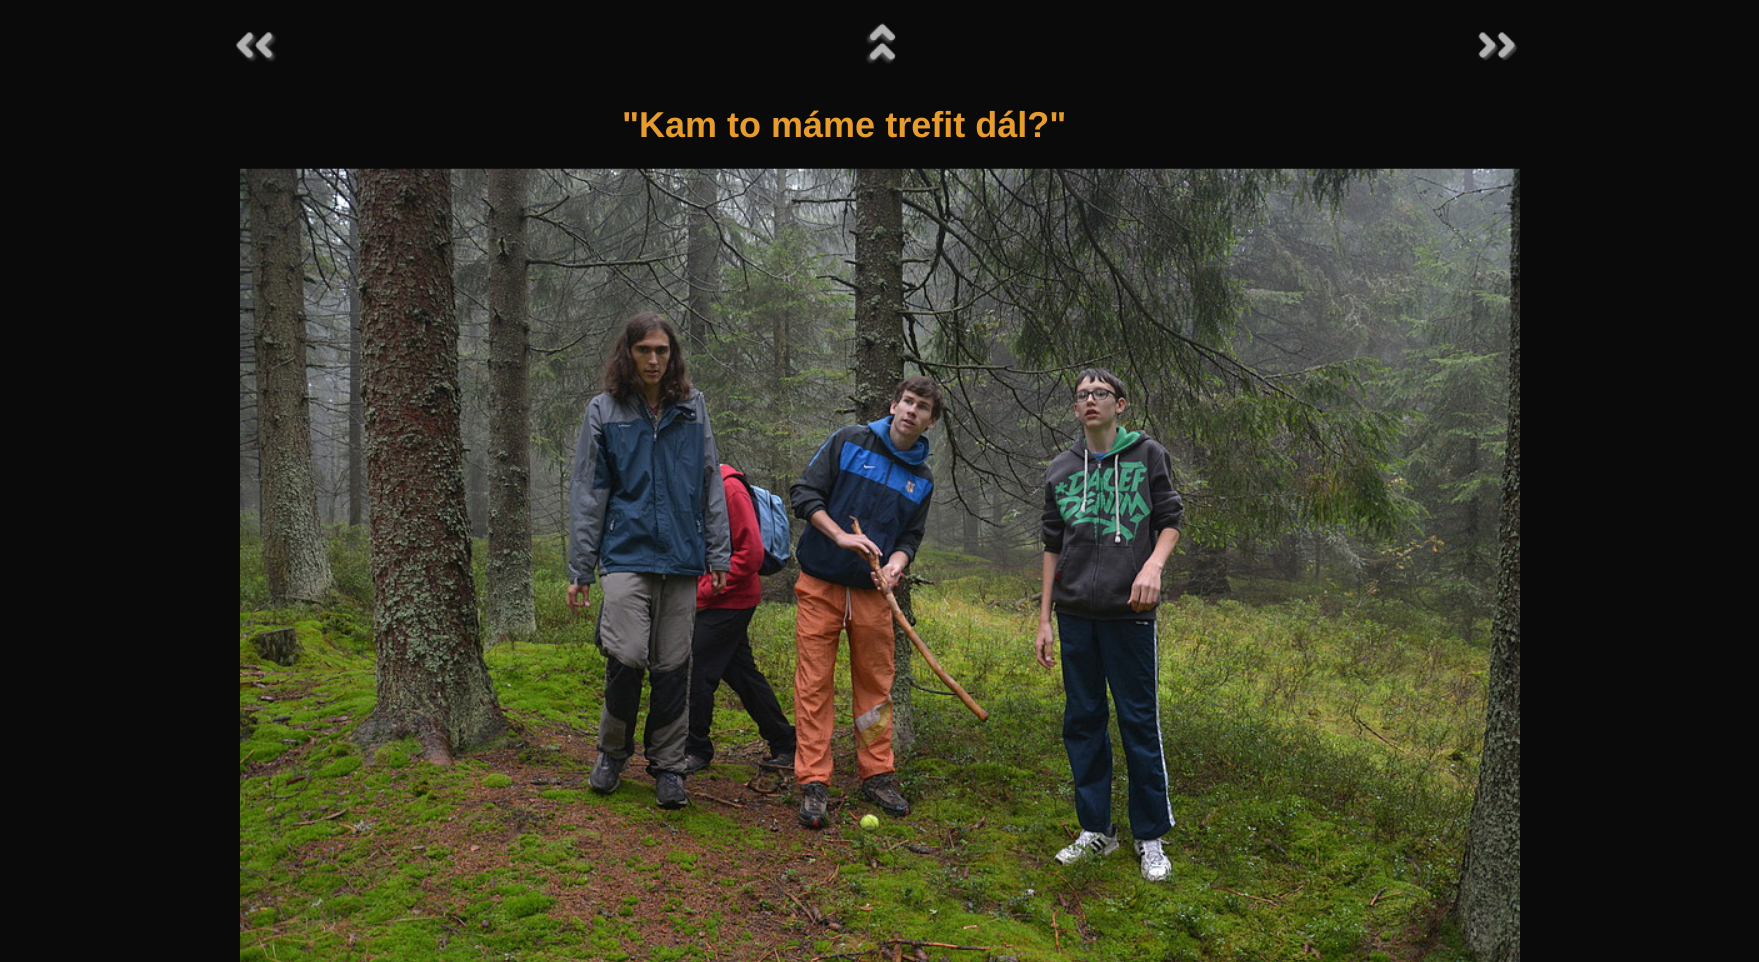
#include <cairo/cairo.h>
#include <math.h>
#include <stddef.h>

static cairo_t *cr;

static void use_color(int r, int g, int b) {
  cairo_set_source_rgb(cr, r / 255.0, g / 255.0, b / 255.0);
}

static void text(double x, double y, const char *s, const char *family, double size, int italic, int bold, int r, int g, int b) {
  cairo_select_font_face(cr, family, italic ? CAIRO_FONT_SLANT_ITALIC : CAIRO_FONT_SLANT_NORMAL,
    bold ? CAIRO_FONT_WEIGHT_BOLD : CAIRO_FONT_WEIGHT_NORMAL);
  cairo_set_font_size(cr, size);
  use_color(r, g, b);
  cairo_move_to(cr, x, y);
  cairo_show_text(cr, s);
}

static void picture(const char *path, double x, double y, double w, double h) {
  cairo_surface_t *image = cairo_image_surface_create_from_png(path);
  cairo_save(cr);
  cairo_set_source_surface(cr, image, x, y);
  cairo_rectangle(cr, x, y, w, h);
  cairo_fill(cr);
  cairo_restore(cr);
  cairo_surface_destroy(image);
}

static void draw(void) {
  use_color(10, 10, 10);
  cairo_paint(cr);
  picture("img_01.png", 236, 32, 41, 30);
  picture("img_02.png", 865, 23, 31, 41);
  picture("img_03.png", 1478, 32, 40, 29);
  picture("img_04.png", 240, 168, 1280, 794);
  text(622, 137, "\"Kam to máme trefit dál?\"", "Liberation Sans", 36, 0, 1, 230, 157, 46);
}

int main(void) {
  cairo_surface_t *surface = cairo_image_surface_create(CAIRO_FORMAT_RGB24, 1759, 962);
  cr = cairo_create(surface);
  cairo_font_options_t *options = cairo_font_options_create();
  cairo_font_options_set_hint_metrics(options, CAIRO_HINT_METRICS_OFF);
  cairo_font_options_set_hint_style(options, CAIRO_HINT_STYLE_NONE);
  cairo_set_font_options(cr, options);
  cairo_set_miter_limit(cr, 4);
  draw();
  cairo_surface_write_to_png(surface, "out.png");
  cairo_font_options_destroy(options);
  cairo_destroy(cr);
  cairo_surface_destroy(surface);
  return 0;
}
